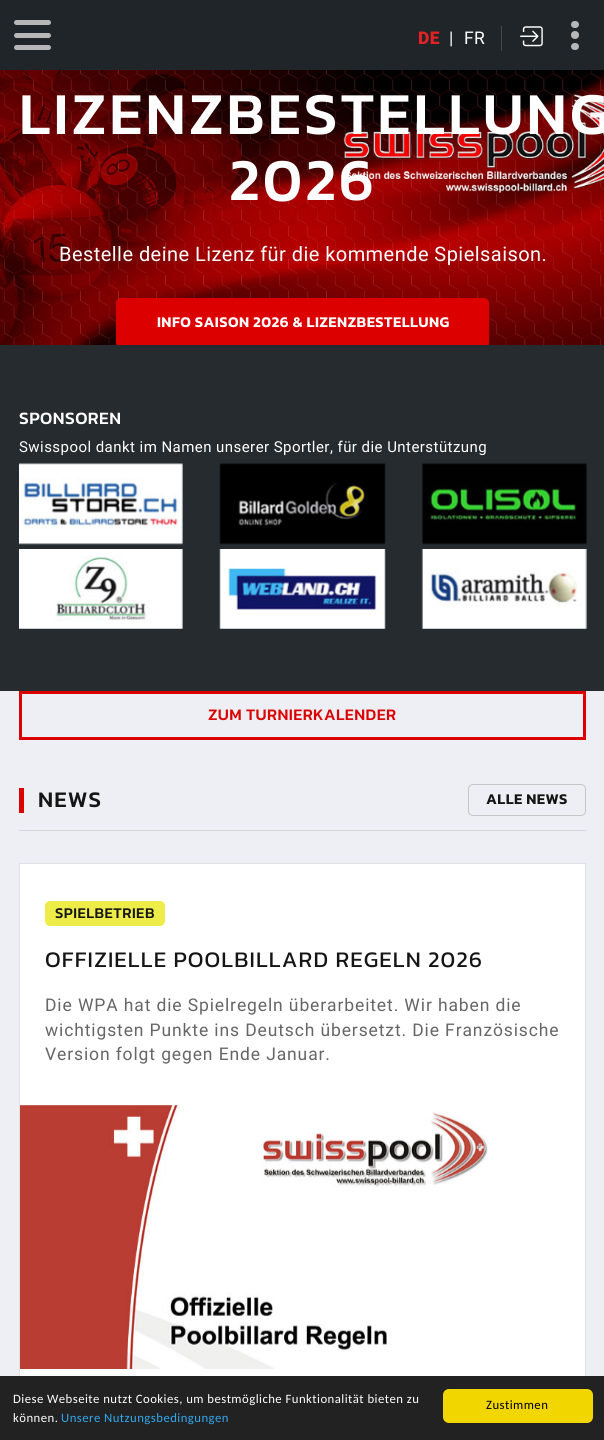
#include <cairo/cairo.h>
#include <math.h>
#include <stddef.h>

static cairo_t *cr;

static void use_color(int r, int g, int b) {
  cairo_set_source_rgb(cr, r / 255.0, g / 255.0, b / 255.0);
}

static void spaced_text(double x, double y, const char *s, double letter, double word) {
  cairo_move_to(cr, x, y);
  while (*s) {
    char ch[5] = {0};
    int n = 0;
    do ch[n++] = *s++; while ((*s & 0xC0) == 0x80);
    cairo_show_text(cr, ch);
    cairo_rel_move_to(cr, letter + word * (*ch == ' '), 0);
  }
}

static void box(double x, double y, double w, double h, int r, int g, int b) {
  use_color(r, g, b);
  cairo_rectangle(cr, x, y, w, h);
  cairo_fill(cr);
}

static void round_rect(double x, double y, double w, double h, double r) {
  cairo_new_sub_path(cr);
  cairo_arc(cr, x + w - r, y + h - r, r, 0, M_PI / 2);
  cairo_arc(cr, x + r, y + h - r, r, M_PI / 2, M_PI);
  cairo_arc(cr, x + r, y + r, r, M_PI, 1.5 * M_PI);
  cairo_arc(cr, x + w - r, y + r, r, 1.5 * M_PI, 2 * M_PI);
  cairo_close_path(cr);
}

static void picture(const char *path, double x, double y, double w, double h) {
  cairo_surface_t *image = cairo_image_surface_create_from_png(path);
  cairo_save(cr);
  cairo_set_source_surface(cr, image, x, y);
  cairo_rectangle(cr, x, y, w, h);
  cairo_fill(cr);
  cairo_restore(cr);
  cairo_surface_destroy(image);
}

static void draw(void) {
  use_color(237, 239, 244);
  cairo_paint(cr);
  box(0, 0, 604, 70, 31, 37, 40);
  use_color(183, 183, 183);
  round_rect(14, 33, 37, 5, 2.5);
  cairo_fill(cr);
  round_rect(14, 20, 37, 5, 2.5);
  cairo_fill(cr);
  round_rect(14, 45, 37, 5, 2.5);
  cairo_fill(cr);
  box(501, 26, 1, 25, 67, 72, 74);
  picture("img_01.png", 520, 26, 23, 21);
  use_color(183, 183, 183);
  cairo_arc(cr, 575, 35, 4, 0, 2 * M_PI);
  cairo_fill(cr);
  round_rect(571, 21, 8, 7, 3.5);
  cairo_fill(cr);
  round_rect(571, 43, 8, 7, 3.5);
  cairo_fill(cr);
  picture("img_02.png", 0, 70, 604, 275);
  box(0, 345, 604, 346, 37, 43, 47);
  cairo_save(cr);
  cairo_rectangle(cr, 0, 70, 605, 275);
  cairo_clip(cr);
  use_color(221, 0, 0);
  round_rect(117.5, 299.5, 370, 47, 3.5);
  cairo_fill_preserve(cr);
  cairo_set_line_width(cr, 3);
  cairo_stroke(cr);
  cairo_restore(cr);
  picture("img_03.png", 19, 463, 164, 82);
  picture("img_04.png", 219, 463, 167, 82);
  picture("img_05.png", 422, 463, 165, 82);
  picture("img_06.png", 19, 549, 164, 80);
  picture("img_07.png", 219, 549, 167, 80);
  picture("img_08.png", 421, 549, 166, 80);
  cairo_rectangle(cr, 20.5, 692.5, 564, 46);
  use_color(221, 0, 0);
  cairo_set_line_width(cr, 3);
  cairo_stroke(cr);
  box(19, 830, 567, 1, 215, 215, 215);
  box(19, 788, 5, 25, 221, 0, 0);
  round_rect(468.5, 784.5, 117, 31, 4.5);
  use_color(198, 198, 198);
  cairo_set_line_width(cr, 1);
  cairo_stroke(cr);
  box(20, 864, 565, 512, 255, 255, 255);
  cairo_rectangle(cr, 19.5, 863.5, 566, 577);
  use_color(225, 225, 225);
  cairo_stroke(cr);
  use_color(238, 236, 73);
  round_rect(45, 901, 120, 25, 5);
  cairo_fill(cr);
  picture("img_09.png", 20, 1105, 468, 264);
  box(0, 1376, 604, 64, 34, 34, 34);
  use_color(241, 214, 0);
  round_rect(443, 1389, 150, 34, 6);
  cairo_fill(cr);
  cairo_select_font_face(cr, "Roboto Black", CAIRO_FONT_SLANT_NORMAL, CAIRO_FONT_WEIGHT_NORMAL);
  cairo_set_font_size(cr, 17.5);
  use_color(226, 34, 37);
  spaced_text(418, 44, "DE", 0.45, 0);
  cairo_select_font_face(cr, "Roboto", CAIRO_FONT_SLANT_NORMAL, CAIRO_FONT_WEIGHT_NORMAL);
  use_color(255, 255, 255);
  spaced_text(449, 44, "|", 0.45, 0);
  spaced_text(464, 44, "FR", 0.45, 0);
  cairo_select_font_face(cr, "Kanit Medium", CAIRO_FONT_SLANT_NORMAL, CAIRO_FONT_WEIGHT_NORMAL);
  cairo_set_font_size(cr, 60);
  spaced_text(19, 134, "LIZENZBESTELLUNG", 3, 0);
  spaced_text(229, 200, "2026", 3, 0);
  cairo_select_font_face(cr, "Roboto", CAIRO_FONT_SLANT_NORMAL, CAIRO_FONT_WEIGHT_NORMAL);
  cairo_set_font_size(cr, 20);
  spaced_text(59, 261, "Bestelle deine Lizenz für die kommende Spielsaison.", 0.45, 0);
  cairo_select_font_face(cr, "Kanit SemiBold", CAIRO_FONT_SLANT_NORMAL, CAIRO_FONT_WEIGHT_NORMAL);
  cairo_set_font_size(cr, 15);
  spaced_text(157, 327, "INFO SAISON 2026 & LIZENZBESTELLUNG", 0.4, 0);
  cairo_select_font_face(cr, "Kanit Medium", CAIRO_FONT_SLANT_NORMAL, CAIRO_FONT_WEIGHT_NORMAL);
  cairo_set_font_size(cr, 17.5);
  spaced_text(19, 424, "SPONSOREN", 0.45, 0);
  cairo_select_font_face(cr, "Roboto", CAIRO_FONT_SLANT_NORMAL, CAIRO_FONT_WEIGHT_NORMAL);
  cairo_set_font_size(cr, 15);
  spaced_text(19, 452, "Swisspool dankt im Namen unserer Sportler, für die Unterstützung", 0.45, 0);
  cairo_select_font_face(cr, "Kanit Medium", CAIRO_FONT_SLANT_NORMAL, CAIRO_FONT_WEIGHT_NORMAL);
  cairo_set_font_size(cr, 16.25);
  use_color(221, 0, 0);
  spaced_text(208, 720, "ZUM TURNIERKALENDER", 0.4, 0);
  cairo_set_font_size(cr, 22.5);
  use_color(21, 21, 21);
  spaced_text(38, 807, "NEWS", 1.1, 0);
  cairo_select_font_face(cr, "Kanit SemiBold", CAIRO_FONT_SLANT_NORMAL, CAIRO_FONT_WEIGHT_NORMAL);
  cairo_set_font_size(cr, 15);
  spaced_text(486, 804, "ALLE NEWS", 0.4, 0);
  cairo_select_font_face(cr, "Kanit Medium", CAIRO_FONT_SLANT_NORMAL, CAIRO_FONT_WEIGHT_NORMAL);
  spaced_text(55, 918, "SPIELBETRIEB", 0.45, 0);
  cairo_select_font_face(cr, "Kanit", CAIRO_FONT_SLANT_NORMAL, CAIRO_FONT_WEIGHT_NORMAL);
  cairo_set_font_size(cr, 22.5);
  spaced_text(45, 967, "OFFIZIELLE POOLBILLARD REGELN 2026", 1.1, 0);
  cairo_select_font_face(cr, "Roboto", CAIRO_FONT_SLANT_NORMAL, CAIRO_FONT_WEIGHT_NORMAL);
  cairo_set_font_size(cr, 17.5);
  use_color(102, 102, 102);
  spaced_text(45, 1011, "Die WPA hat die Spielregeln überarbeitet. Wir haben die", 0.88, 0);
  spaced_text(45, 1036, "wichtigsten Punkte ins Deutsch übersetzt. Die Französische", 0.88, 0);
  spaced_text(45, 1060, "Version folgt gegen Ende Januar.", 0.88, 0);
  cairo_select_font_face(cr, "Carlito", CAIRO_FONT_SLANT_NORMAL, CAIRO_FONT_WEIGHT_NORMAL);
  cairo_set_font_size(cr, 12.75);
  use_color(255, 255, 255);
  spaced_text(13, 1403, "Diese Webseite nutzt Cookies, um bestmögliche Funktionalität bieten zu", 0.45, 0);
  spaced_text(13, 1422, "können.", 0.45, 0);
  use_color(49, 168, 240);
  spaced_text(61, 1422, "Unsere Nutzungsbedingungen", 0.45, 0);
  use_color(0, 0, 0);
  spaced_text(486, 1409, "Zustimmen", 0.45, 0);
}

int main(void) {
  cairo_surface_t *surface = cairo_image_surface_create(CAIRO_FORMAT_RGB24, 604, 1440);
  cr = cairo_create(surface);
  cairo_font_options_t *options = cairo_font_options_create();
  cairo_font_options_set_hint_metrics(options, CAIRO_HINT_METRICS_OFF);
  cairo_font_options_set_hint_style(options, CAIRO_HINT_STYLE_NONE);
  cairo_set_font_options(cr, options);
  cairo_set_miter_limit(cr, 4);
  draw();
  cairo_surface_write_to_png(surface, "out.png");
  cairo_font_options_destroy(options);
  cairo_destroy(cr);
  cairo_surface_destroy(surface);
  return 0;
}
